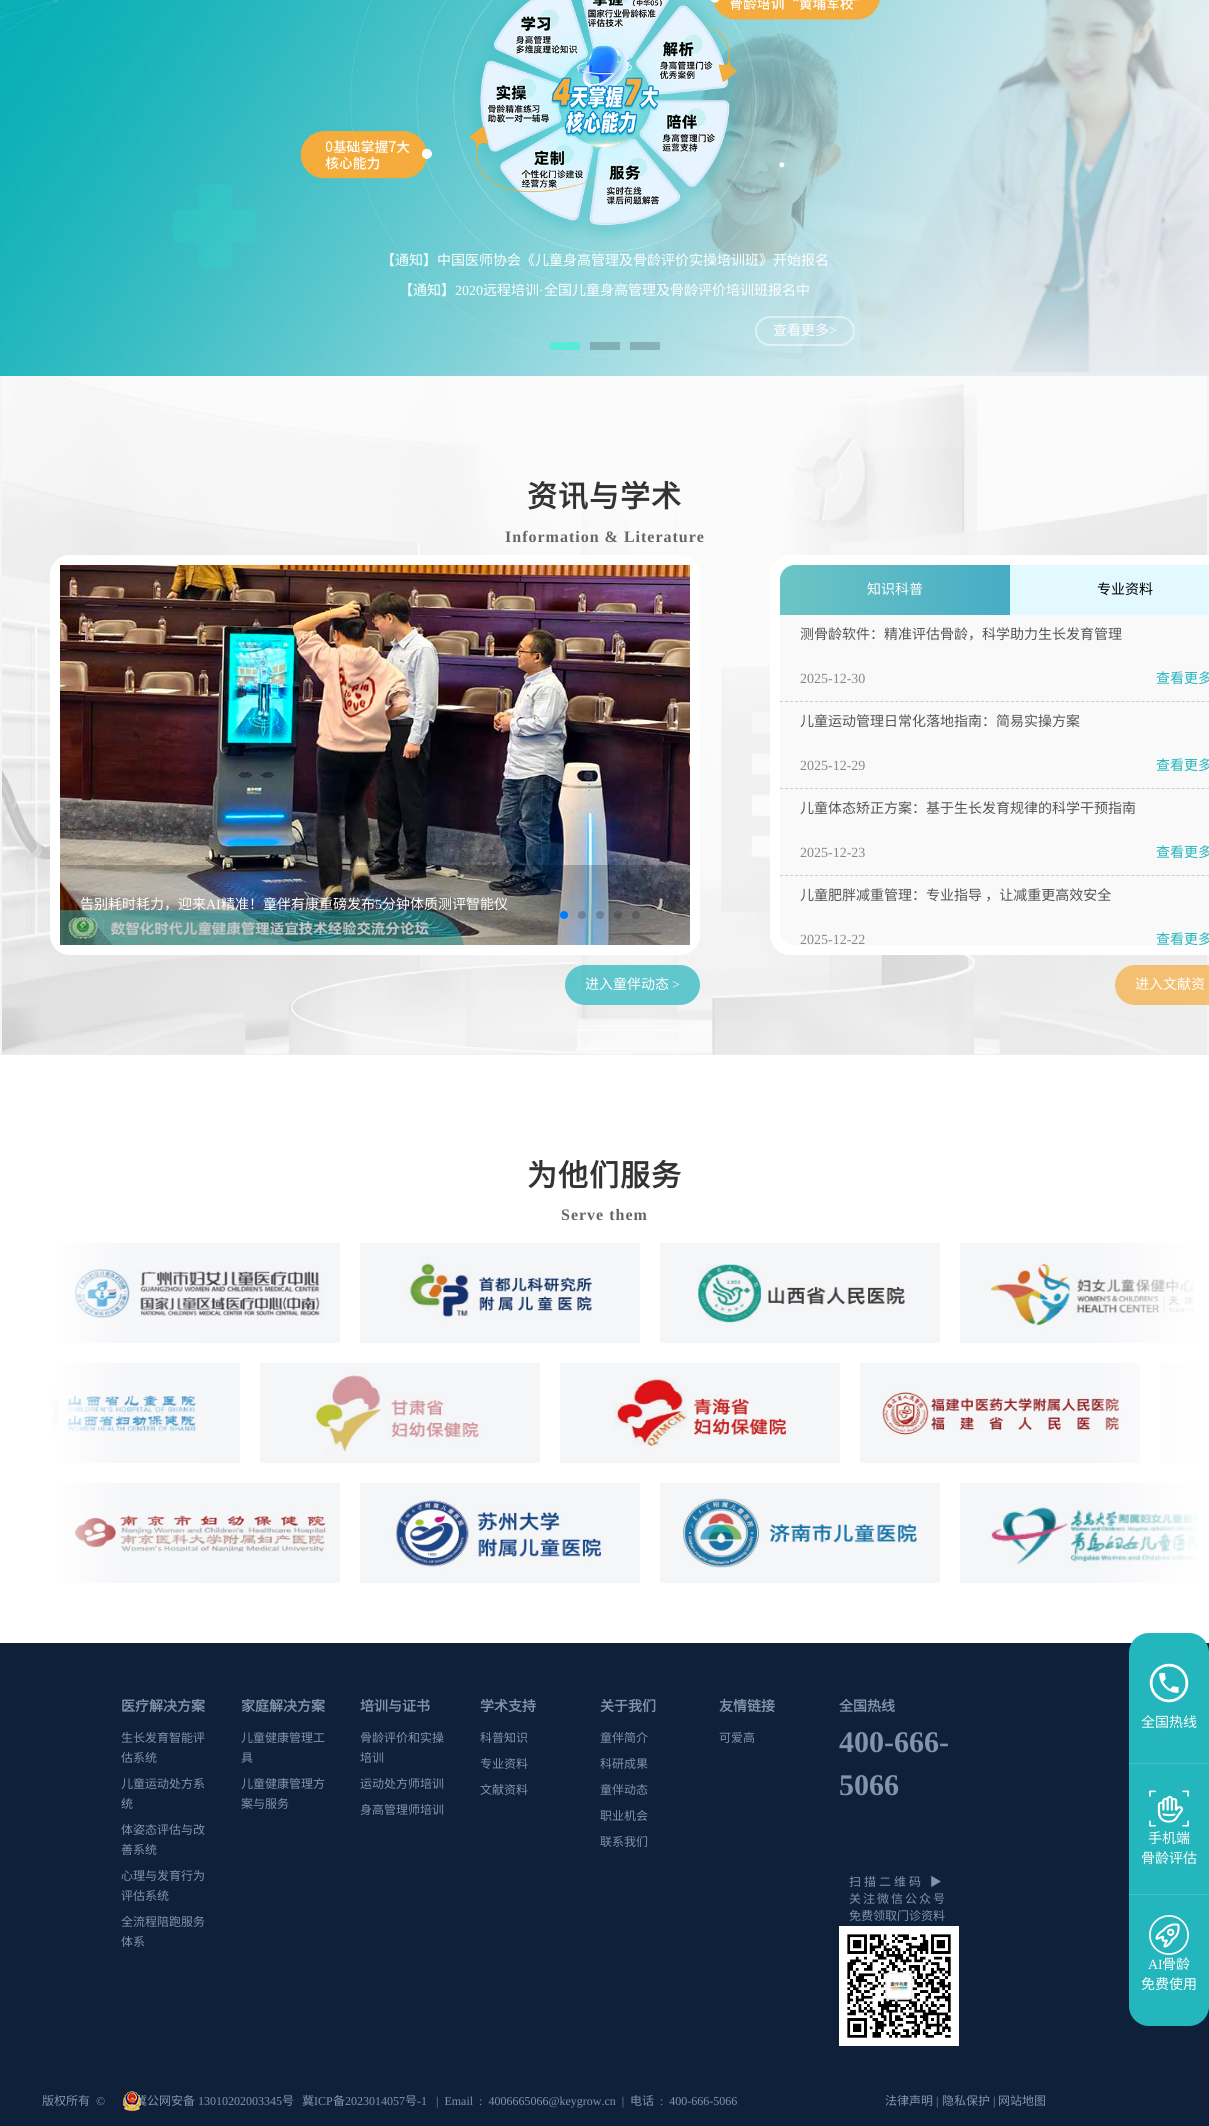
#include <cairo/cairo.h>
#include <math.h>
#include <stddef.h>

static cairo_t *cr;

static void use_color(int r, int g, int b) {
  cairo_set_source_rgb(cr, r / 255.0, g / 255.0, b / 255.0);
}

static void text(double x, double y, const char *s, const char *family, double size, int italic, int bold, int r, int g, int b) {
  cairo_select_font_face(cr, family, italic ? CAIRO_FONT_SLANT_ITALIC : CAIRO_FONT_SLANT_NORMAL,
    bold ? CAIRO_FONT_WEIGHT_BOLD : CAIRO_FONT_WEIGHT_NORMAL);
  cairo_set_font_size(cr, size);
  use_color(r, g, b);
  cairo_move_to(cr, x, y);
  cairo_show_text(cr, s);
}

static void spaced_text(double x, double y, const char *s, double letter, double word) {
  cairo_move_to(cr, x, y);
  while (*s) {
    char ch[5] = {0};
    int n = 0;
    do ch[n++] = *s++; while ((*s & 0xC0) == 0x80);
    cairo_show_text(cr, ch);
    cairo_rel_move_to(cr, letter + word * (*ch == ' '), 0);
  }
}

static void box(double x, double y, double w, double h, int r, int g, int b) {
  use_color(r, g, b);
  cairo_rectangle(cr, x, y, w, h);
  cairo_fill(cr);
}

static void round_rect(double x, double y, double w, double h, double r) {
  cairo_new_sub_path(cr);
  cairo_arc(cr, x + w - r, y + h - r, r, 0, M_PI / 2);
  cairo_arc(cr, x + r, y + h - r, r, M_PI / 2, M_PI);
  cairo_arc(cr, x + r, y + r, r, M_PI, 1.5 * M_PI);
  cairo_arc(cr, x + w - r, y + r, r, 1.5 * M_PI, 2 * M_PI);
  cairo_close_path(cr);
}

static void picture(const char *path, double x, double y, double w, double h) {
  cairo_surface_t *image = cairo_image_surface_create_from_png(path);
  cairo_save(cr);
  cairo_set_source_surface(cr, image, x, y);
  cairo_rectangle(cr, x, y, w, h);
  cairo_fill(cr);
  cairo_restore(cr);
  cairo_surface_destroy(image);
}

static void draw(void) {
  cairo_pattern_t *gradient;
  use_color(238, 238, 238);
  cairo_paint(cr);
  picture("img_01.png", 0, 0, 1209, 376);
  round_rect(756, 317, 98, 28, 14);
  cairo_set_source_rgba(cr, 1, 1, 1, 0.5);
  cairo_stroke(cr);
  box(550, 342, 30, 8, 88, 235, 216);
  cairo_set_source_rgba(cr, 0, 0, 0, 0.2);
  cairo_rectangle(cr, 590, 342, 30, 8);
  cairo_fill(cr);
  cairo_rectangle(cr, 630, 342, 30, 8);
  cairo_fill(cr);
  picture("img_02.png", 0, 376, 1209, 679);
  use_color(255, 255, 255);
  round_rect(50, 555, 650, 400, 20);
  cairo_fill(cr);
  picture("img_03.png", 60, 565, 630, 380);
  cairo_set_source_rgba(cr, 0, 0, 0, 0.2);
  cairo_rectangle(cr, 60, 865, 630, 80);
  cairo_fill(cr);
  use_color(0, 122, 255);
  cairo_arc(cr, 564, 915, 4, 0, 2 * M_PI);
  cairo_fill(cr);
  cairo_set_source_rgba(cr, 0, 0, 0, 0.2);
  cairo_arc(cr, 582, 915, 4, 0, 2 * M_PI);
  cairo_fill(cr);
  cairo_arc(cr, 600, 915, 4, 0, 2 * M_PI);
  cairo_fill(cr);
  cairo_arc(cr, 618, 915, 4, 0, 2 * M_PI);
  cairo_fill(cr);
  cairo_arc(cr, 636, 915, 4, 0, 2 * M_PI);
  cairo_fill(cr);
  use_color(255, 255, 255);
  cairo_new_path(cr);
  cairo_move_to(cr, 790, 555);
  cairo_line_to(cr, 1209, 555);
  cairo_line_to(cr, 1209, 955);
  cairo_line_to(cr, 790, 955);
  cairo_curve_to(cr, 779, 955, 770, 946, 770, 935);
  cairo_line_to(cr, 770, 575);
  cairo_curve_to(cr, 770, 564, 779, 555, 790, 555);
  cairo_close_path(cr);
  cairo_fill(cr);
  use_color(225, 249, 255);
  cairo_new_path(cr);
  cairo_move_to(cr, 795, 565);
  cairo_line_to(cr, 1209, 565);
  cairo_line_to(cr, 1209, 615);
  cairo_line_to(cr, 780, 615);
  cairo_line_to(cr, 780, 580);
  cairo_curve_to(cr, 780, 571.5, 786.5, 565, 795, 565);
  cairo_close_path(cr);
  cairo_fill(cr);
  gradient = cairo_pattern_create_linear(780, 590, 1010, 590);
  cairo_pattern_add_color_stop_rgba(gradient, 0, 0.42, 0.773, 0.773, 1);
  cairo_pattern_add_color_stop_rgba(gradient, 1, 0.278, 0.675, 0.773, 1);
  cairo_set_source(cr, gradient);
  cairo_pattern_destroy(gradient);
  cairo_new_path(cr);
  cairo_move_to(cr, 795, 565);
  cairo_line_to(cr, 1010, 565);
  cairo_line_to(cr, 1010, 615);
  cairo_line_to(cr, 780, 615);
  cairo_line_to(cr, 780, 580);
  cairo_curve_to(cr, 780, 571.5, 786.5, 565, 795, 565);
  cairo_close_path(cr);
  cairo_fill(cr);
  use_color(249, 249, 249);
  cairo_new_path(cr);
  cairo_move_to(cr, 780, 615);
  cairo_line_to(cr, 1209, 615);
  cairo_line_to(cr, 1209, 945);
  cairo_line_to(cr, 795, 945);
  cairo_curve_to(cr, 786.5, 945, 780, 938.5, 780, 930);
  cairo_close_path(cr);
  cairo_fill(cr);
  cairo_new_path(cr);
  cairo_move_to(cr, 780, 701.5);
  cairo_line_to(cr, 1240, 701.5);
  use_color(204, 203, 211);
  cairo_set_line_width(cr, 1);
  cairo_set_dash(cr, (double[]){3, 2.02}, 2, 0);
  cairo_stroke(cr);
  cairo_new_path(cr);
  cairo_move_to(cr, 780, 788.5);
  cairo_line_to(cr, 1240, 788.5);
  cairo_stroke(cr);
  cairo_new_path(cr);
  cairo_move_to(cr, 780, 875.5);
  cairo_line_to(cr, 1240, 875.5);
  cairo_stroke(cr);
  cairo_set_source_rgba(cr, 0.137, 0.714, 0.737, 0.7);
  round_rect(565, 965, 135, 40, 20);
  cairo_fill(cr);
  cairo_set_source_rgba(cr, 0.961, 0.675, 0.235, 0.7);
  cairo_new_path(cr);
  cairo_move_to(cr, 1135, 965);
  cairo_line_to(cr, 1209, 965);
  cairo_line_to(cr, 1209, 1005);
  cairo_line_to(cr, 1135, 1005);
  cairo_curve_to(cr, 1124, 1005, 1115, 996, 1115, 985);
  cairo_curve_to(cr, 1115, 974, 1124, 965, 1135, 965);
  cairo_close_path(cr);
  cairo_fill(cr);
  box(0, 1055, 1209, 588, 255, 255, 255);
  picture("img_04.png", 60, 1243, 280, 100);
  picture("img_08.png", 50, 1363, 190, 100);
  picture("img_13.png", 60, 1483, 280, 100);
  gradient = cairo_pattern_create_linear(-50, 1413, 200, 1413);
  cairo_pattern_add_color_stop_rgba(gradient, 0.4, 1, 1, 1, 1);
  cairo_pattern_add_color_stop_rgba(gradient, 0.7, 1, 1, 1, 0.1);
  cairo_set_source(cr, gradient);
  cairo_pattern_destroy(gradient);
  cairo_rectangle(cr, 50, 1243, 150, 340);
  cairo_fill(cr);
  picture("img_05.png", 360, 1243, 280, 100);
  picture("img_06.png", 660, 1243, 280, 100);
  box(1195, 1243, 4, 100, 245, 246, 248);
  picture("img_07.png", 960, 1243, 235, 100);
  picture("img_11.png", 860, 1363, 280, 100);
  picture("img_12.png", 1160, 1363, 39, 100);
  picture("img_16.png", 960, 1483, 239, 100);
  gradient = cairo_pattern_create_linear(1100, 1413, 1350, 1413);
  cairo_pattern_add_color_stop_rgba(gradient, 0, 1, 1, 1, 0.1);
  cairo_pattern_add_color_stop_rgba(gradient, 0.4, 1, 1, 1, 1);
  cairo_set_source(cr, gradient);
  cairo_pattern_destroy(gradient);
  cairo_rectangle(cr, 1100, 1243, 99, 340);
  cairo_fill(cr);
  picture("img_09.png", 260, 1363, 280, 100);
  picture("img_10.png", 560, 1363, 280, 100);
  picture("img_14.png", 360, 1483, 280, 100);
  picture("img_15.png", 660, 1483, 280, 100);
  box(0, 1643, 1209, 483, 15, 33, 58);
  picture("img_17.png", 839, 1926, 120, 120);
  use_color(35, 182, 188);
  round_rect(1129, 1633, 80, 393, 20);
  cairo_fill(cr);
  picture("img_19.png", 1149, 1663, 40, 40);
  box(1129, 1763, 80, 1, 72, 193, 198);
  picture("img_20.png", 1149, 1790, 40, 37);
  box(1129, 1894, 80, 1, 72, 193, 198);
  picture("img_21.png", 1149, 1915, 40, 40);
  text(381, 265, "【通知】中国医师协会《儿童身高管理及骨龄评价实操培训班》开始报名", "Noto Sans CJK SC", 14, 0, 0, 255, 255, 255);
  text(399, 295, "【通知】", "Noto Sans CJK SC", 14, 0, 0, 255, 255, 255);
  text(455, 295, "2020", "Liberation Serif", 14, 0, 0, 255, 255, 255);
  text(483, 295, "远程培训", "Noto Sans CJK SC", 14, 0, 0, 255, 255, 255);
  text(539, 295, "·", "Liberation Serif", 14, 0, 0, 255, 255, 255);
  text(544, 295, "全国儿童身高管理及骨龄评价培训班报名中", "Noto Sans CJK SC", 14, 0, 0, 255, 255, 255);
  text(773, 335, "查看更多", "Noto Sans CJK SC", 14, 0, 0, 255, 255, 255);
  text(829, 335, ">", "Liberation Serif", 14, 0, 0, 255, 255, 255);
  cairo_select_font_face(cr, "Noto Sans CJK SC", CAIRO_FONT_SLANT_NORMAL, CAIRO_FONT_WEIGHT_BOLD);
  cairo_set_font_size(cr, 30);
  use_color(51, 51, 51);
  spaced_text(527, 507, "资讯与学术", 1, 0);
  cairo_select_font_face(cr, "Liberation Serif", CAIRO_FONT_SLANT_NORMAL, CAIRO_FONT_WEIGHT_BOLD);
  cairo_set_font_size(cr, 16);
  use_color(102, 102, 102);
  spaced_text(505, 542, "Information & Literature", 1, 0);
  text(80, 909, "告别耗时耗力，迎来", "Noto Sans CJK SC", 14, 0, 0, 255, 255, 255);
  text(206, 909, "AI", "Liberation Serif", 14, 0, 0, 255, 255, 255);
  text(221, 909, "精准！童伴有康重磅发布", "Noto Sans CJK SC", 14, 0, 0, 255, 255, 255);
  text(375, 909, "5", "Liberation Serif", 14, 0, 0, 255, 255, 255);
  text(382, 909, "分钟体质测评智能仪", "Noto Sans CJK SC", 14, 0, 0, 255, 255, 255);
  text(867, 594, "知识科普", "Noto Sans CJK SC", 14, 0, 0, 255, 255, 255);
  text(1097, 594, "专业资料", "Noto Sans CJK SC", 14, 0, 0, 0, 0, 0);
  text(800, 639, "测骨龄软件：精准评估骨龄，科学助力生长发育管理", "Noto Sans CJK SC", 14, 0, 0, 85, 85, 85);
  text(800, 683, "2025-12-30", "Liberation Serif", 14, 0, 0, 136, 136, 136);
  text(1156, 683, "查看更多", "Noto Sans CJK SC", 14, 0, 0, 35, 182, 188);
  text(800, 726, "儿童运动管理日常化落地指南：简易实操方案", "Noto Sans CJK SC", 14, 0, 0, 85, 85, 85);
  text(800, 770, "2025-12-29", "Liberation Serif", 14, 0, 0, 136, 136, 136);
  text(1156, 770, "查看更多", "Noto Sans CJK SC", 14, 0, 0, 35, 182, 188);
  text(800, 813, "儿童体态矫正方案：基于生长发育规律的科学干预指南", "Noto Sans CJK SC", 14, 0, 0, 85, 85, 85);
  text(800, 857, "2025-12-23", "Liberation Serif", 14, 0, 0, 136, 136, 136);
  text(1156, 857, "查看更多", "Noto Sans CJK SC", 14, 0, 0, 35, 182, 188);
  text(800, 900, "儿童肥胖减重管理：专业指导 ，让减重更高效安全", "Noto Sans CJK SC", 14, 0, 0, 85, 85, 85);
  text(800, 944, "2025-12-22", "Liberation Serif", 14, 0, 0, 136, 136, 136);
  text(1156, 944, "查看更多", "Noto Sans CJK SC", 14, 0, 0, 35, 182, 188);
  text(585, 989, "进入童伴动态", "Noto Sans CJK SC", 14, 0, 0, 255, 255, 255);
  text(672, 989, ">", "Liberation Serif", 14, 0, 0, 255, 255, 255);
  text(1135, 989, "进入文献资", "Noto Sans CJK SC", 14, 0, 0, 255, 255, 255);
  cairo_select_font_face(cr, "Noto Sans CJK SC", CAIRO_FONT_SLANT_NORMAL, CAIRO_FONT_WEIGHT_BOLD);
  cairo_set_font_size(cr, 30);
  use_color(51, 51, 51);
  spaced_text(527, 1186, "为他们服务", 1, 0);
  cairo_select_font_face(cr, "Liberation Serif", CAIRO_FONT_SLANT_NORMAL, CAIRO_FONT_WEIGHT_BOLD);
  cairo_set_font_size(cr, 16);
  use_color(102, 102, 102);
  spaced_text(561, 1220, "Serve them", 1, 0);
  text(121, 1711, "医疗解决方案", "Noto Sans CJK SC", 14, 0, 1, 129, 148, 171);
  text(121, 1742, "生长发育智能评", "Noto Sans CJK SC", 12, 0, 0, 129, 148, 171);
  text(121, 1762, "估系统", "Noto Sans CJK SC", 12, 0, 0, 129, 148, 171);
  text(121, 1788, "儿童运动处方系", "Noto Sans CJK SC", 12, 0, 0, 129, 148, 171);
  text(121, 1808, "统", "Noto Sans CJK SC", 12, 0, 0, 129, 148, 171);
  text(121, 1834, "体姿态评估与改", "Noto Sans CJK SC", 12, 0, 0, 129, 148, 171);
  text(121, 1854, "善系统", "Noto Sans CJK SC", 12, 0, 0, 129, 148, 171);
  text(121, 1880, "心理与发育行为", "Noto Sans CJK SC", 12, 0, 0, 129, 148, 171);
  text(121, 1900, "评估系统", "Noto Sans CJK SC", 12, 0, 0, 129, 148, 171);
  text(121, 1926, "全流程陪跑服务", "Noto Sans CJK SC", 12, 0, 0, 129, 148, 171);
  text(121, 1946, "体系", "Noto Sans CJK SC", 12, 0, 0, 129, 148, 171);
  text(241, 1711, "家庭解决方案", "Noto Sans CJK SC", 14, 0, 1, 129, 148, 171);
  text(241, 1742, "儿童健康管理工", "Noto Sans CJK SC", 12, 0, 0, 129, 148, 171);
  text(241, 1762, "具", "Noto Sans CJK SC", 12, 0, 0, 129, 148, 171);
  text(241, 1788, "儿童健康管理方", "Noto Sans CJK SC", 12, 0, 0, 129, 148, 171);
  text(241, 1808, "案与服务", "Noto Sans CJK SC", 12, 0, 0, 129, 148, 171);
  text(360, 1711, "培训与证书", "Noto Sans CJK SC", 14, 0, 1, 129, 148, 171);
  text(360, 1742, "骨龄评价和实操", "Noto Sans CJK SC", 12, 0, 0, 129, 148, 171);
  text(360, 1762, "培训", "Noto Sans CJK SC", 12, 0, 0, 129, 148, 171);
  text(360, 1788, "运动处方师培训", "Noto Sans CJK SC", 12, 0, 0, 129, 148, 171);
  text(360, 1814, "身高管理师培训", "Noto Sans CJK SC", 12, 0, 0, 129, 148, 171);
  text(480, 1711, "学术支持", "Noto Sans CJK SC", 14, 0, 1, 129, 148, 171);
  text(480, 1742, "科普知识", "Noto Sans CJK SC", 12, 0, 0, 129, 148, 171);
  text(480, 1768, "专业资料", "Noto Sans CJK SC", 12, 0, 0, 129, 148, 171);
  text(480, 1794, "文献资料", "Noto Sans CJK SC", 12, 0, 0, 129, 148, 171);
  text(600, 1711, "关于我们", "Noto Sans CJK SC", 14, 0, 1, 129, 148, 171);
  text(600, 1742, "童伴简介", "Noto Sans CJK SC", 12, 0, 0, 129, 148, 171);
  text(600, 1768, "科研成果", "Noto Sans CJK SC", 12, 0, 0, 129, 148, 171);
  text(600, 1794, "童伴动态", "Noto Sans CJK SC", 12, 0, 0, 129, 148, 171);
  text(600, 1820, "职业机会", "Noto Sans CJK SC", 12, 0, 0, 129, 148, 171);
  text(600, 1846, "联系我们", "Noto Sans CJK SC", 12, 0, 0, 129, 148, 171);
  text(719, 1711, "友情链接", "Noto Sans CJK SC", 14, 0, 1, 129, 148, 171);
  text(719, 1742, "可爱高", "Noto Sans CJK SC", 12, 0, 0, 129, 148, 171);
  text(839, 1711, "全国热线", "Noto Sans CJK SC", 14, 0, 1, 129, 148, 171);
  text(839, 1752, "400-666-", "Liberation Serif", 30, 0, 1, 129, 148, 171);
  text(839, 1795, "5066", "Liberation Serif", 30, 0, 1, 129, 148, 171);
  cairo_select_font_face(cr, "Noto Sans CJK SC", CAIRO_FONT_SLANT_NORMAL, CAIRO_FONT_WEIGHT_NORMAL);
  cairo_set_font_size(cr, 12);
  spaced_text(849, 1886, "扫描二维码 ▶", 3, 0);
  spaced_text(849, 1903, "关注微信公众号", 2, 0);
  text(849, 1920, "免费领取门诊资料", "Noto Sans CJK SC", 12, 0, 0, 129, 148, 171);
  text(42, 2105, "版权所有", "Noto Sans CJK SC", 12, 0, 0, 129, 148, 171);
  text(96, 2105, "©", "Liberation Serif", 12, 0, 0, 129, 148, 171);
  text(135, 2105, "冀公网安备", "Noto Sans CJK SC", 12, 0, 0, 129, 148, 171);
  picture("img_18.png", 123, 2091, 18, 20);
  text(198, 2105, "13010202003345", "Liberation Serif", 12, 0, 0, 129, 148, 171);
  text(282, 2105, "号", "Noto Sans CJK SC", 12, 0, 0, 129, 148, 171);
  text(302, 2105, "冀", "Noto Sans CJK SC", 12, 0, 0, 129, 148, 171);
  text(314, 2105, "ICP", "Liberation Serif", 12, 0, 0, 129, 148, 171);
  text(333, 2105, "备", "Noto Sans CJK SC", 12, 0, 0, 129, 148, 171);
  text(345, 2105, "2023014057", "Liberation Serif", 12, 0, 0, 129, 148, 171);
  text(405, 2105, "号", "Noto Sans CJK SC", 12, 0, 0, 129, 148, 171);
  text(417, 2105, "-1", "Liberation Serif", 12, 0, 0, 129, 148, 171);
  text(436, 2105, "|  Email  :  4006665066@keygrow.cn  |", "Liberation Serif", 12, 0, 0, 129, 148, 171);
  text(630, 2105, "电话", "Noto Sans CJK SC", 12, 0, 0, 129, 148, 171);
  text(660, 2105, ":  400-666-5066", "Liberation Serif", 12, 0, 0, 129, 148, 171);
  text(885, 2105, "法律声明", "Noto Sans CJK SC", 12, 0, 0, 129, 148, 171);
  text(936, 2105, "|", "Liberation Serif", 12, 0, 0, 129, 148, 171);
  text(942, 2105, "隐私保护", "Noto Sans CJK SC", 12, 0, 0, 129, 148, 171);
  text(993, 2105, "|", "Liberation Serif", 12, 0, 0, 129, 148, 171);
  text(998, 2105, "网站地图", "Noto Sans CJK SC", 12, 0, 0, 129, 148, 171);
  text(1141, 1727, "全国热线", "Noto Sans CJK SC", 14, 0, 0, 255, 255, 255);
  text(1148, 1843, "手机端", "Noto Sans CJK SC", 14, 0, 0, 255, 255, 255);
  text(1141, 1863, "骨龄评估", "Noto Sans CJK SC", 14, 0, 0, 255, 255, 255);
  text(1148, 1969, "AI", "Liberation Serif", 14, 0, 0, 255, 255, 255);
  text(1162, 1969, "骨龄", "Noto Sans CJK SC", 14, 0, 0, 255, 255, 255);
  text(1141, 1989, "免费使用", "Noto Sans CJK SC", 14, 0, 0, 255, 255, 255);
}

int main(void) {
  cairo_surface_t *surface = cairo_image_surface_create(CAIRO_FORMAT_RGB24, 1209, 2126);
  cr = cairo_create(surface);
  cairo_font_options_t *options = cairo_font_options_create();
  cairo_font_options_set_hint_metrics(options, CAIRO_HINT_METRICS_OFF);
  cairo_font_options_set_hint_style(options, CAIRO_HINT_STYLE_NONE);
  cairo_set_font_options(cr, options);
  cairo_set_miter_limit(cr, 4);
  draw();
  cairo_surface_write_to_png(surface, "out.png");
  cairo_font_options_destroy(options);
  cairo_destroy(cr);
  cairo_surface_destroy(surface);
  return 0;
}
